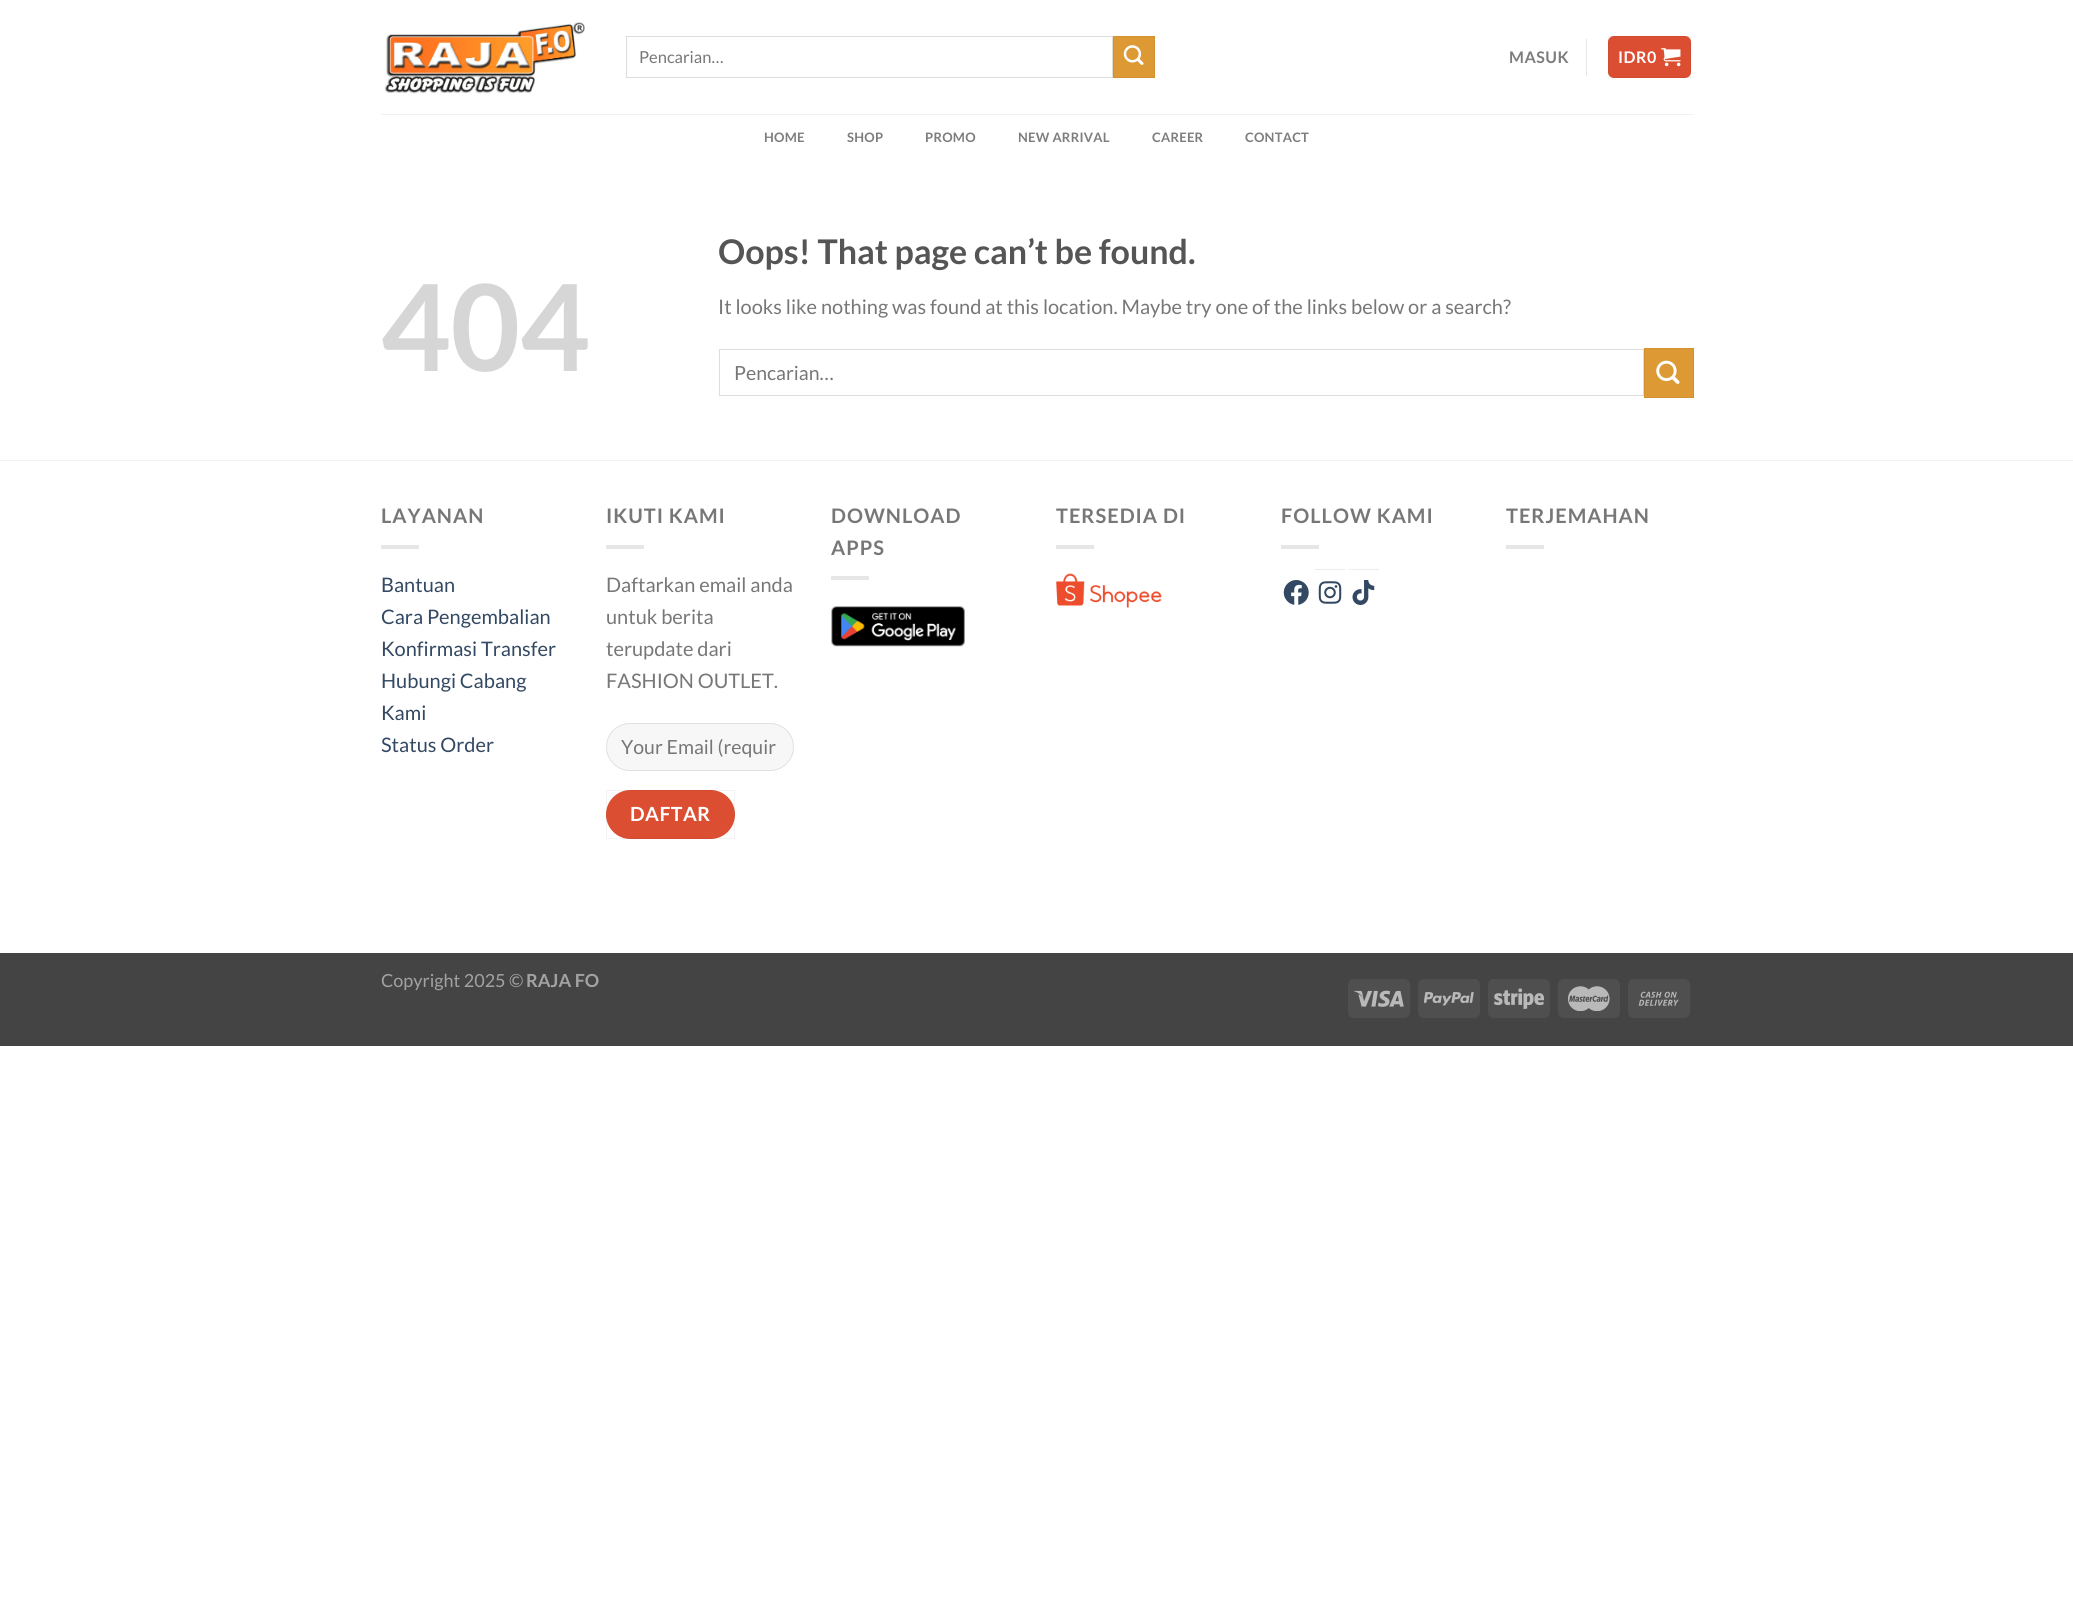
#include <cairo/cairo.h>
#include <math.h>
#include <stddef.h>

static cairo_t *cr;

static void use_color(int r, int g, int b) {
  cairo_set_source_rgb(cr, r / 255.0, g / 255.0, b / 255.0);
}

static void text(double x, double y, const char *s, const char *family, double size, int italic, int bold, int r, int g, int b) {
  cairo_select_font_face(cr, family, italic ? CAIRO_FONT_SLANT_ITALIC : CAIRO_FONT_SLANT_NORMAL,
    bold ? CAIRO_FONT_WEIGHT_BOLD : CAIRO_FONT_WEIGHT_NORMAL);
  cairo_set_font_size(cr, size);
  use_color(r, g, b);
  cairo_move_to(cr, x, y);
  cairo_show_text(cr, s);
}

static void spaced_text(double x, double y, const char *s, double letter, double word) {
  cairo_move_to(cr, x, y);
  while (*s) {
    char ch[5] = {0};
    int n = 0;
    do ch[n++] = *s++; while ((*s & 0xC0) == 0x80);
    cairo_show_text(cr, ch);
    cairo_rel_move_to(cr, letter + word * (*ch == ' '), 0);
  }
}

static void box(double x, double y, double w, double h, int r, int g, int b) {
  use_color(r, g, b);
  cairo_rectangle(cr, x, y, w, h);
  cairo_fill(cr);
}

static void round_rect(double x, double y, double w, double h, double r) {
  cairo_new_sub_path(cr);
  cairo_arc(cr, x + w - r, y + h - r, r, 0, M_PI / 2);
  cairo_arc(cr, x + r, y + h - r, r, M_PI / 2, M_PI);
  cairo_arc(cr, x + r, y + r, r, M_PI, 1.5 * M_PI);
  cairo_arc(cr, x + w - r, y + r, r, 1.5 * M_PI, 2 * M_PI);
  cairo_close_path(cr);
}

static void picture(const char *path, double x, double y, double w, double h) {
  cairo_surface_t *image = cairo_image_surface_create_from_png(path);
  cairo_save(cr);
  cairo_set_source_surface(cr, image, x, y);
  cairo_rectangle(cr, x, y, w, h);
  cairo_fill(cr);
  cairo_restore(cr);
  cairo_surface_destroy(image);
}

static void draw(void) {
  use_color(255, 255, 255);
  cairo_paint(cr);
  picture("img_01.png", 0, 0, 2073, 1610);
  picture("img_02.png", 384, 22, 201, 72);
  cairo_rectangle(cr, 626.5, 36.5, 486, 41);
  use_color(221, 221, 221);
  cairo_set_line_width(cr, 1);
  cairo_stroke(cr);
  use_color(221, 153, 51);
  cairo_rectangle(cr, 1113.5, 36.5, 41, 41);
  cairo_fill_preserve(cr);
  use_color(210, 145, 48);
  cairo_stroke(cr);
  picture("img_03.png", 1123, 45, 21, 20);
  box(1586, 39, 1, 37, 230, 230, 230);
  use_color(220, 78, 50);
  round_rect(1608, 36, 83, 42, 6);
  cairo_fill(cr);
  cairo_rectangle(cr, 1608.5, 36.5, 82, 41);
  cairo_set_source_rgba(cr, 0, 0, 0, 0.05);
  cairo_stroke(cr);
  picture("img_04.png", 1661, 48, 20, 19);
  box(381, 114, 1313, 1, 241, 241, 241);
  cairo_rectangle(cr, 719.5, 349.5, 924, 46);
  use_color(221, 221, 221);
  cairo_stroke(cr);
  use_color(221, 153, 51);
  cairo_rectangle(cr, 1644.5, 348.5, 49, 49);
  cairo_fill_preserve(cr);
  use_color(210, 145, 48);
  cairo_stroke(cr);
  picture("img_05.png", 1656, 360, 24, 24);
  box(0, 460, 2073, 1, 242, 242, 242);
  box(381, 545, 38, 4, 230, 230, 230);
  box(606, 545, 38, 4, 230, 230, 230);
  use_color(247, 247, 247);
  round_rect(606, 723, 188, 48, 24);
  cairo_fill(cr);
  round_rect(606.5, 723.5, 187, 47, 23.5);
  cairo_set_source_rgba(cr, 0, 0, 0, 0.09);
  cairo_stroke(cr);
  use_color(220, 78, 50);
  round_rect(606, 790, 129, 49, 24.5);
  cairo_fill(cr);
  cairo_rectangle(cr, 606.5, 790.5, 128, 48);
  cairo_set_source_rgba(cr, 0, 0, 0, 0.05);
  cairo_stroke(cr);
  box(831, 576, 38, 4, 230, 230, 230);
  picture("img_06.png", 831, 606, 134, 41);
  box(1056, 545, 38, 4, 230, 230, 230);
  picture("img_07.png", 1056, 573, 106, 35);
  box(1281, 545, 38, 4, 230, 230, 230);
  picture("img_08.png", 1283, 580, 26, 25);
  box(1315, 569, 30, 1, 236, 236, 236);
  picture("img_09.png", 1318, 581, 24, 23);
  box(1349, 569, 30, 1, 236, 236, 236);
  picture("img_10.png", 1352, 580, 23, 25);
  box(1506, 545, 38, 4, 230, 230, 230);
  box(0, 953, 2073, 93, 68, 68, 68);
  use_color(79, 79, 79);
  round_rect(1348, 979, 62, 39, 6);
  cairo_fill(cr);
  picture("img_11.png", 1354, 990, 50, 17);
  round_rect(1418, 979, 62, 39, 6);
  cairo_fill(cr);
  picture("img_12.png", 1424, 992, 50, 14);
  round_rect(1488, 979, 62, 39, 6);
  cairo_fill(cr);
  picture("img_13.png", 1494, 988, 50, 22);
  round_rect(1558, 979, 62, 39, 6);
  cairo_fill(cr);
  picture("img_14.png", 1567, 986, 43, 25);
  round_rect(1628, 979, 62, 39, 6);
  cairo_fill(cr);
  picture("img_15.png", 1638, 991, 41, 15);
  text(639, 63, "Pencarian…", "Lato", 16.5, 0, 0, 119, 119, 119);
  cairo_select_font_face(cr, "Lato", CAIRO_FONT_SLANT_NORMAL, CAIRO_FONT_WEIGHT_BOLD);
  cairo_set_font_size(cr, 16);
  use_color(125, 125, 125);
  spaced_text(1509, 63, "MASUK", 0.5, 0);
  use_color(255, 255, 255);
  spaced_text(1618, 63, "IDR0", 0.5, 0);
  cairo_set_font_size(cr, 13);
  use_color(125, 125, 125);
  spaced_text(764, 142, "HOME", 0.25, 0);
  spaced_text(847, 142, "SHOP", 0.25, 0);
  spaced_text(925, 142, "PROMO", 0.25, 0);
  spaced_text(1018, 142, "NEW ARRIVAL", 0.25, 0);
  spaced_text(1152, 142, "CAREER", 0.25, 0);
  spaced_text(1245, 142, "CONTACT", 0.25, 0);
  text(381, 371, "404", "Lato", 120, 0, 1, 214, 214, 214);
  text(718, 264, "Oops! That page can’t be found.", "Lato", 34, 0, 1, 85, 85, 85);
  text(718, 314, "It looks like nothing was found at this location. Maybe try one of the links below or a search?", "Lato", 20, 0, 0, 119, 119, 119);
  text(734, 380, "Pencarian…", "Lato", 19.5, 0, 0, 119, 119, 119);
  cairo_select_font_face(cr, "Lato", CAIRO_FONT_SLANT_NORMAL, CAIRO_FONT_WEIGHT_BOLD);
  cairo_set_font_size(cr, 20);
  spaced_text(381, 523, "LAYANAN", 1, 0);
  text(381, 592, "Bantuan", "Lato", 20, 0, 0, 51, 72, 98);
  text(381, 624, "Cara Pengembalian", "Lato", 20, 0, 0, 51, 72, 98);
  text(381, 656, "Konfirmasi Transfer", "Lato", 20, 0, 0, 51, 72, 98);
  text(381, 688, "Hubungi Cabang", "Lato", 20, 0, 0, 51, 72, 98);
  text(381, 720, "Kami", "Lato", 20, 0, 0, 51, 72, 98);
  text(381, 752, "Status Order", "Lato", 20, 0, 0, 51, 72, 98);
  cairo_select_font_face(cr, "Lato", CAIRO_FONT_SLANT_NORMAL, CAIRO_FONT_WEIGHT_BOLD);
  use_color(119, 119, 119);
  spaced_text(606, 523, "IKUTI KAMI", 1, 0);
  text(606, 592, "Daftarkan email anda", "Lato", 20, 0, 0, 119, 119, 119);
  text(606, 624, "untuk berita", "Lato", 20, 0, 0, 119, 119, 119);
  text(606, 656, "terupdate dari", "Lato", 20, 0, 0, 119, 119, 119);
  text(606, 688, "FASHION OUTLET.", "Lato", 20, 0, 0, 119, 119, 119);
  text(621, 754, "Your Email (requir", "Lato", 19.5, 0, 0, 119, 119, 119);
  cairo_select_font_face(cr, "Lato", CAIRO_FONT_SLANT_NORMAL, CAIRO_FONT_WEIGHT_BOLD);
  use_color(255, 255, 255);
  spaced_text(630, 821, "DAFTAR", 0.5, 0);
  cairo_set_font_size(cr, 20);
  use_color(119, 119, 119);
  spaced_text(831, 523, "DOWNLOAD", 1, 0);
  spaced_text(831, 555, "APPS", 1, 0);
  spaced_text(1056, 523, "TERSEDIA DI", 1, 0);
  spaced_text(1281, 523, "FOLLOW KAMI", 1, 0);
  spaced_text(1506, 523, "TERJEMAHAN", 1, 0);
  text(381, 987, "Copyright 2025 ©", "Lato", 18, 0, 0, 162, 162, 162);
  text(526, 987, "RAJA FO", "Lato", 18, 0, 1, 162, 162, 162);
}

int main(void) {
  cairo_surface_t *surface = cairo_image_surface_create(CAIRO_FORMAT_RGB24, 2073, 1610);
  cr = cairo_create(surface);
  cairo_font_options_t *options = cairo_font_options_create();
  cairo_font_options_set_hint_metrics(options, CAIRO_HINT_METRICS_OFF);
  cairo_font_options_set_hint_style(options, CAIRO_HINT_STYLE_NONE);
  cairo_set_font_options(cr, options);
  cairo_set_miter_limit(cr, 4);
  draw();
  cairo_surface_write_to_png(surface, "out.png");
  cairo_font_options_destroy(options);
  cairo_destroy(cr);
  cairo_surface_destroy(surface);
  return 0;
}
